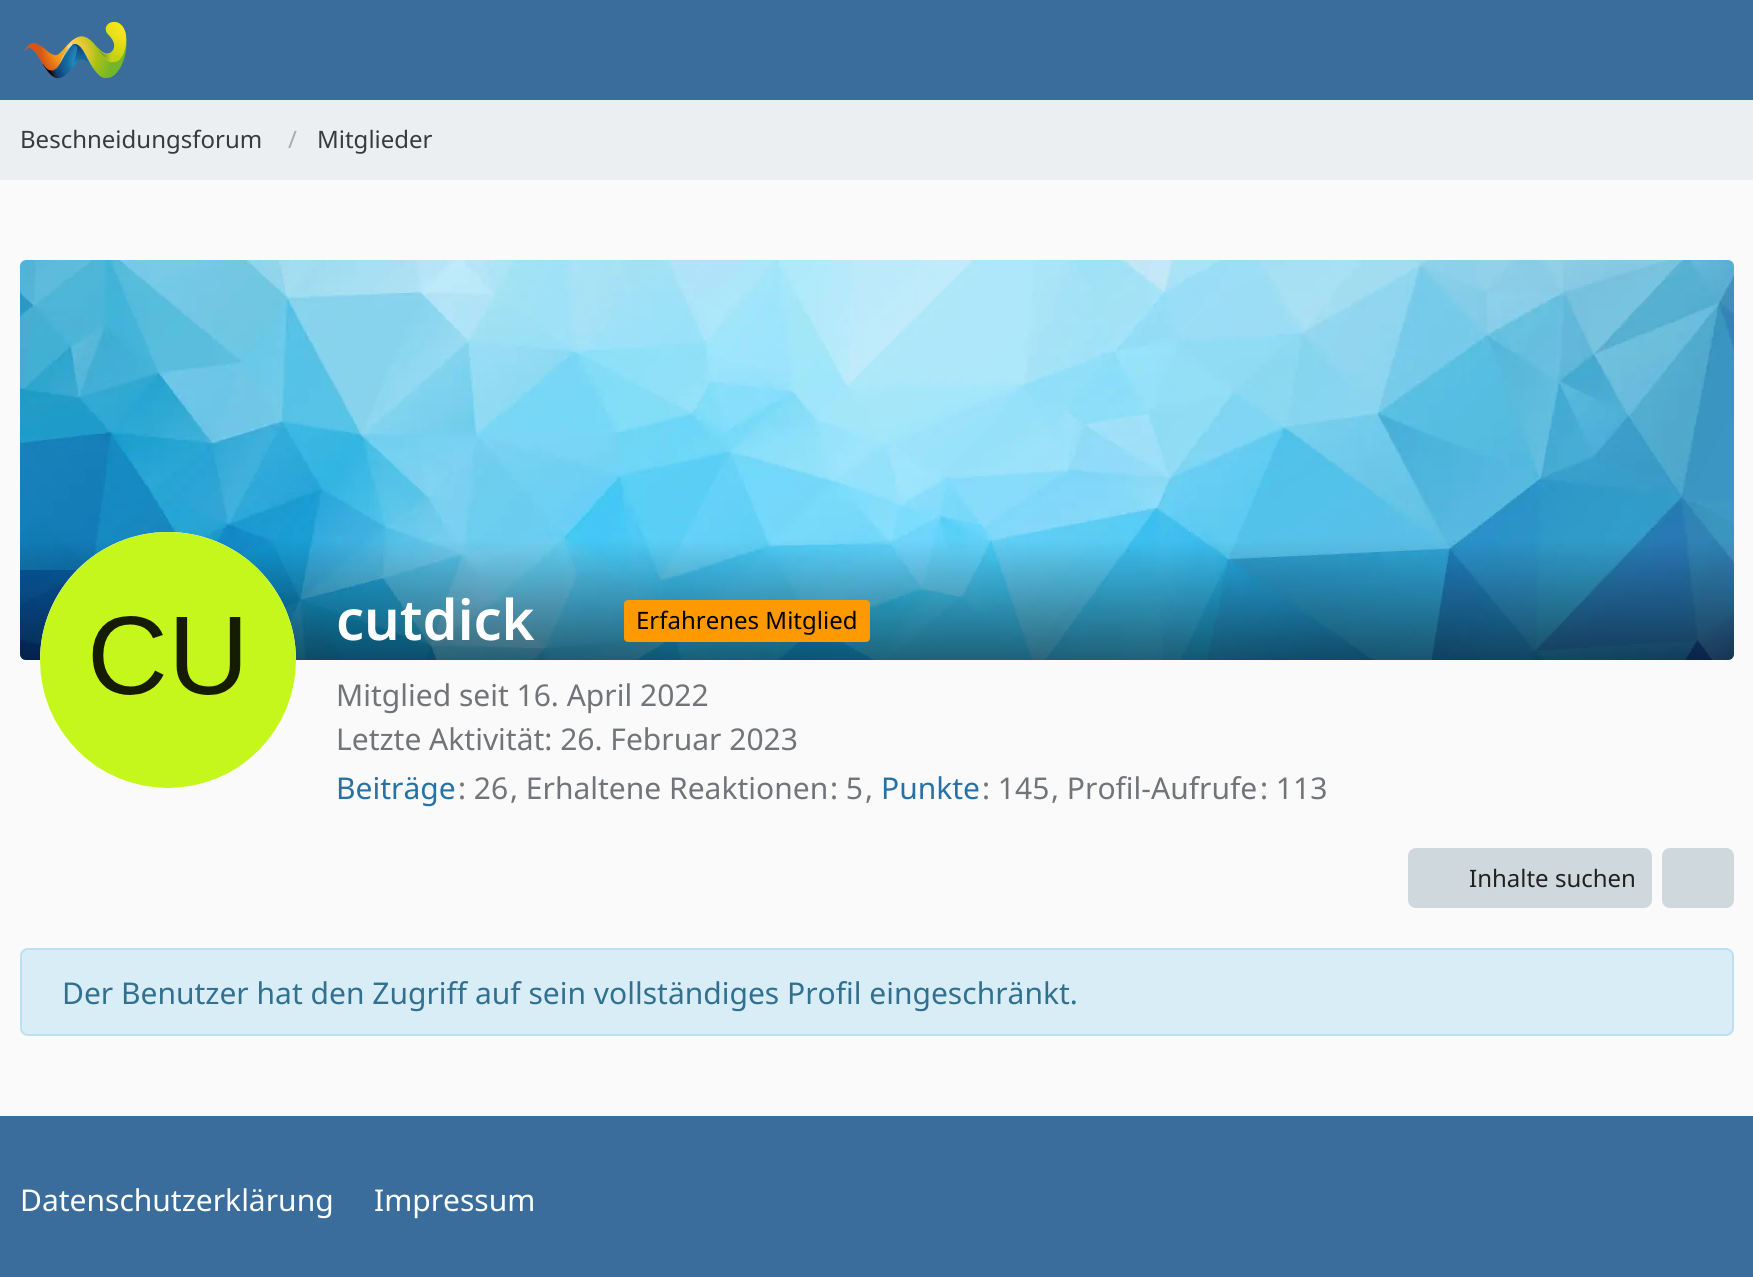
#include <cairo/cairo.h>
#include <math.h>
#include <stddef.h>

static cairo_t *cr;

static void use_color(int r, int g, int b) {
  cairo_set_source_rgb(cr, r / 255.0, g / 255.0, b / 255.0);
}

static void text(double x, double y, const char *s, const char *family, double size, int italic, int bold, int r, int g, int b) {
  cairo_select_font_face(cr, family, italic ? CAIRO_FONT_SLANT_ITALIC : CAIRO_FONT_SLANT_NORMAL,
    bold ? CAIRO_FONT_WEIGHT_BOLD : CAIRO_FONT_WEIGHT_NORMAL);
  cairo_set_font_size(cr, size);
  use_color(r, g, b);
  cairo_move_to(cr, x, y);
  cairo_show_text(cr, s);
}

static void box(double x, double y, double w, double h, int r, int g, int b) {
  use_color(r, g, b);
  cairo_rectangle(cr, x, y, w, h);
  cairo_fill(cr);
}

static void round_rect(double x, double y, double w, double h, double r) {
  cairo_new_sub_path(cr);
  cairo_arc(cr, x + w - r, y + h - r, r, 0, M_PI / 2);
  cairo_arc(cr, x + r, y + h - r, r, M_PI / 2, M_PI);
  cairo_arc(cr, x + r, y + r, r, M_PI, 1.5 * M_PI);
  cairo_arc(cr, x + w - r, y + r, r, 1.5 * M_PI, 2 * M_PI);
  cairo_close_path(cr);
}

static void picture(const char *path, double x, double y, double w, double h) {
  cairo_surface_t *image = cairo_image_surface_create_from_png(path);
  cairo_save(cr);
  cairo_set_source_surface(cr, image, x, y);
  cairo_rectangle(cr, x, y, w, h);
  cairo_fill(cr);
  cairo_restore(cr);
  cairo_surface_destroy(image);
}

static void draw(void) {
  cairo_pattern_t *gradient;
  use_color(250, 250, 250);
  cairo_paint(cr);
  box(0, 0, 1753, 100, 58, 109, 156);
  picture("img_01.png", 24, 21, 103, 57);
  box(0, 100, 1753, 80, 236, 239, 241);
  picture("img_02.png", 20, 260, 1714, 400);
  gradient = cairo_pattern_create_linear(877, 260, 877, 660);
  cairo_pattern_add_color_stop_rgba(gradient, 0.7, 0, 0, 0, 0);
  cairo_pattern_add_color_stop_rgba(gradient, 1, 0, 0, 0, 0.5);
  cairo_set_source(cr, gradient);
  cairo_pattern_destroy(gradient);
  cairo_new_path(cr);
  cairo_move_to(cr, 20, 260);
  cairo_line_to(cr, 1734, 260);
  cairo_line_to(cr, 1734, 654);
  cairo_curve_to(cr, 1734, 657.5, 1731.5, 660, 1728, 660);
  cairo_line_to(cr, 26, 660);
  cairo_curve_to(cr, 22.5, 660, 20, 657.5, 20, 654);
  cairo_close_path(cr);
  cairo_fill(cr);
  use_color(255, 255, 255);
  cairo_arc(cr, 168, 660, 128, 0, 2 * M_PI);
  cairo_fill(cr);
  picture("img_03.png", 40, 532, 256, 256);
  use_color(255, 153, 0);
  round_rect(624, 600, 246, 42, 4);
  cairo_fill(cr);
  use_color(207, 216, 220);
  round_rect(1408, 848, 244, 60, 8);
  cairo_fill(cr);
  round_rect(1662, 848, 72, 60, 8);
  cairo_fill(cr);
  use_color(217, 237, 247);
  round_rect(21, 949, 1712, 86, 7);
  cairo_fill_preserve(cr);
  use_color(188, 223, 241);
  cairo_stroke(cr);
  box(0, 1116, 1753, 161, 58, 109, 156);
  text(20, 148, "Beschneidungsforum", "Noto Sans", 24, 0, 0, 58, 58, 61);
  text(288, 148, "/", "Noto Sans", 24, 0, 0, 170, 170, 170);
  text(317, 148, "Mitglieder", "Noto Sans", 24, 0, 0, 58, 58, 61);
  text(336, 640, "cutdick", "Noto Sans SemiBold", 56, 0, 0, 255, 255, 255);
  text(636, 629, "Erfahrenes Mitglied", "Noto Sans", 24, 0, 0, 0, 0, 0);
  text(336, 706, "Mitglied seit 16. April 2022", "Noto Sans", 30, 0, 0, 113, 117, 122);
  text(336, 750, "Letzte Aktivität: 26. Februar 2023", "Noto Sans", 30, 0, 0, 113, 117, 122);
  text(336, 799, "Beiträge", "Noto Sans", 30, 0, 0, 38, 113, 166);
  text(458, 799, ": 26", "Noto Sans", 30, 0, 0, 113, 117, 122);
  text(510, 799, ", Erhaltene Reaktionen", "Noto Sans", 30, 0, 0, 113, 117, 122);
  text(830, 799, ": 5", "Noto Sans", 30, 0, 0, 113, 117, 122);
  text(865, 799, ",", "Noto Sans", 30, 0, 0, 113, 117, 122);
  text(881, 799, "Punkte", "Noto Sans", 30, 0, 0, 38, 113, 166);
  text(982, 799, ": 145", "Noto Sans", 30, 0, 0, 113, 117, 122);
  text(1051, 799, ", Profil-Aufrufe", "Noto Sans", 30, 0, 0, 113, 117, 122);
  text(1260, 799, ": 113", "Noto Sans", 30, 0, 0, 113, 117, 122);
  text(1469, 887, "Inhalte suchen", "Noto Sans", 24, 0, 0, 33, 33, 33);
  text(62, 1004, "Der Benutzer hat den Zugriff auf sein vollständiges Profil eingeschränkt.", "Noto Sans", 30, 0, 0, 49, 112, 143);
  text(20, 1211, "Datenschutzerklärung", "Noto Sans", 30, 0, 0, 255, 255, 255);
  text(374, 1211, "Impressum", "Noto Sans", 30, 0, 0, 255, 255, 255);
}

int main(void) {
  cairo_surface_t *surface = cairo_image_surface_create(CAIRO_FORMAT_RGB24, 1753, 1277);
  cr = cairo_create(surface);
  cairo_font_options_t *options = cairo_font_options_create();
  cairo_font_options_set_hint_metrics(options, CAIRO_HINT_METRICS_OFF);
  cairo_font_options_set_hint_style(options, CAIRO_HINT_STYLE_NONE);
  cairo_set_font_options(cr, options);
  cairo_set_miter_limit(cr, 4);
  draw();
  cairo_surface_write_to_png(surface, "out.png");
  cairo_font_options_destroy(options);
  cairo_destroy(cr);
  cairo_surface_destroy(surface);
  return 0;
}
